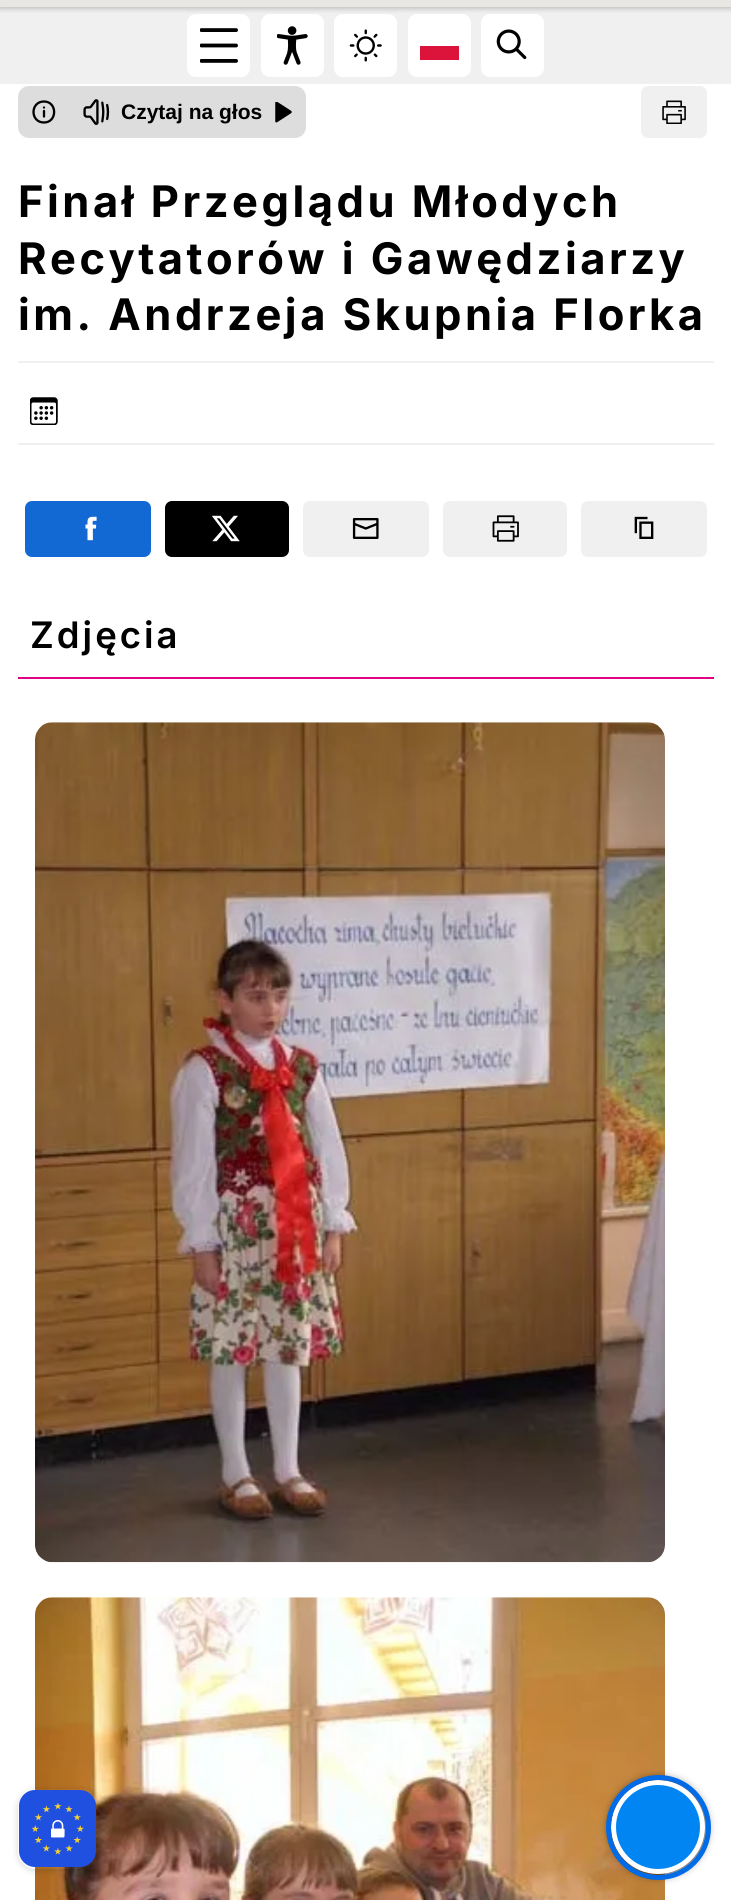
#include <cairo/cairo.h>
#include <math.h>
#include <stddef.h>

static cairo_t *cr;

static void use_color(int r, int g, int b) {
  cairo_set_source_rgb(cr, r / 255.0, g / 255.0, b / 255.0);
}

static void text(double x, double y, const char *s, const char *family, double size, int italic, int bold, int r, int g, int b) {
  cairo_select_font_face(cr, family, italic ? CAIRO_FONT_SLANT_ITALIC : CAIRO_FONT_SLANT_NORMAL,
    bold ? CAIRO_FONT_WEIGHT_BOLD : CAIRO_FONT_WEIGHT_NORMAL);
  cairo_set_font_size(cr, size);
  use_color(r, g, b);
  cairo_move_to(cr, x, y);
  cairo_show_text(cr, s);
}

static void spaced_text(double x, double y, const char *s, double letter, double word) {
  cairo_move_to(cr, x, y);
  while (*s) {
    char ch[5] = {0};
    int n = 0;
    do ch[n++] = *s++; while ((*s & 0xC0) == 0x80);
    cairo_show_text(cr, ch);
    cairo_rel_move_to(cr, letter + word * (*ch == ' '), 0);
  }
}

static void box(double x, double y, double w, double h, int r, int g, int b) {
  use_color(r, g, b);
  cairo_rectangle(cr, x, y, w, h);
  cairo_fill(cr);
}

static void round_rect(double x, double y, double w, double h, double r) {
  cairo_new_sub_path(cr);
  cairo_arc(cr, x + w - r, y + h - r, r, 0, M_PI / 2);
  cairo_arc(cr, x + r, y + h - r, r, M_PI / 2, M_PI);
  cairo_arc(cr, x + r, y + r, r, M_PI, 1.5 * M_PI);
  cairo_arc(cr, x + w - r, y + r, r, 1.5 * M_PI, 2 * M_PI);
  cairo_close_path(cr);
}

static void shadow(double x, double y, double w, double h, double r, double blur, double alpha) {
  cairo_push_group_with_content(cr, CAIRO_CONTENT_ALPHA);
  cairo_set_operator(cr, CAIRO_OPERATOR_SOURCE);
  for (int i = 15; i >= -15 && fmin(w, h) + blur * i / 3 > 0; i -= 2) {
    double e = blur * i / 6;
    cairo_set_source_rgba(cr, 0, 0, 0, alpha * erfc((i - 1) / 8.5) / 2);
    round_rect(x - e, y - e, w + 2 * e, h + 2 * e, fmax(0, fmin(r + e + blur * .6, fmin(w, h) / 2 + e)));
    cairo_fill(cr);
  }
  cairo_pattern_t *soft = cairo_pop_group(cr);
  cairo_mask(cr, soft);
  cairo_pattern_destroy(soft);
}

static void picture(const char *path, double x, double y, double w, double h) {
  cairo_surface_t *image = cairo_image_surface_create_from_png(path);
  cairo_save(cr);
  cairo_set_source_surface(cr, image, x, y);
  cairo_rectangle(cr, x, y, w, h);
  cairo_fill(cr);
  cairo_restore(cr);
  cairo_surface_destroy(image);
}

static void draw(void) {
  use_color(255, 255, 255);
  cairo_paint(cr);
  box(0, 7, 731, 77, 240, 240, 240);
  use_color(255, 255, 255);
  round_rect(188, 15, 61, 61, 8);
  cairo_fill_preserve(cr);
  cairo_stroke(cr);
  round_rect(262, 15, 61, 61, 8);
  cairo_fill_preserve(cr);
  cairo_stroke(cr);
  round_rect(335, 15, 61, 61, 8);
  cairo_fill_preserve(cr);
  cairo_stroke(cr);
  round_rect(409, 15, 61, 61, 8);
  cairo_fill_preserve(cr);
  cairo_stroke(cr);
  round_rect(482, 15, 61, 61, 8);
  cairo_fill_preserve(cr);
  cairo_stroke(cr);
  use_color(0, 0, 0);
  shadow(0, 2, 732, 7, 0, 2.5, 0.2);
  box(0, 0, 731, 7, 232, 231, 228);
  picture("img_01.png", 200, 28, 38, 35);
  picture("img_02.png", 277, 26, 31, 39);
  picture("img_03.png", 349, 29, 33, 33);
  box(420, 46, 39, 14, 220, 20, 60);
  picture("img_04.png", 496, 29, 31, 31);
  use_color(221, 221, 221);
  cairo_new_path(cr);
  cairo_move_to(cr, 29, 86);
  cairo_line_to(cr, 70, 86);
  cairo_line_to(cr, 70, 138);
  cairo_line_to(cr, 29, 138);
  cairo_curve_to(cr, 23, 138, 18, 133, 18, 127);
  cairo_line_to(cr, 18, 97);
  cairo_curve_to(cr, 18, 91, 23, 86, 29, 86);
  cairo_close_path(cr);
  cairo_fill(cr);
  cairo_new_path(cr);
  cairo_move_to(cr, 44, 111);
  cairo_line_to(cr, 44, 116.5);
  cairo_move_to(cr, 44, 122.5);
  cairo_curve_to(cr, 30, 122.5, 30, 101.5, 44, 101.5);
  cairo_curve_to(cr, 57.5, 101.5, 57.5, 122.5, 44, 122.5);
  cairo_close_path(cr);
  cairo_move_to(cr, 44, 107.5);
  cairo_line_to(cr, 44, 107.5);
  cairo_close_path(cr);
  use_color(0, 0, 0);
  cairo_set_line_width(cr, 2.3);
  cairo_set_line_cap(cr, CAIRO_LINE_CAP_ROUND);
  cairo_set_line_join(cr, CAIRO_LINE_JOIN_ROUND);
  cairo_stroke(cr);
  use_color(221, 221, 221);
  cairo_new_path(cr);
  cairo_move_to(cr, 70, 86);
  cairo_line_to(cr, 295, 86);
  cairo_curve_to(cr, 301, 86, 306, 91, 306, 97);
  cairo_line_to(cr, 306, 127);
  cairo_curve_to(cr, 306, 133, 301, 138, 295, 138);
  cairo_line_to(cr, 70, 138);
  cairo_close_path(cr);
  cairo_fill(cr);
  picture("img_05.png", 83, 99, 27, 26);
  picture("img_06.png", 275, 102, 17, 21);
  use_color(240, 240, 240);
  round_rect(641, 86, 66, 52, 7);
  cairo_fill(cr);
  picture("img_07.png", 662, 100, 24, 24);
  box(18, 361, 696, 2, 240, 240, 240);
  box(18, 443, 696, 2, 240, 240, 240);
  picture("img_08.png", 30, 397, 28, 28);
  use_color(18, 105, 212);
  round_rect(25, 501, 126, 56, 7);
  cairo_fill(cr);
  picture("img_09.png", 85, 516, 12, 25);
  use_color(0, 0, 0);
  round_rect(165, 501, 124, 56, 7);
  cairo_fill(cr);
  picture("img_10.png", 212, 515, 28, 27);
  use_color(240, 240, 240);
  round_rect(303, 501, 126, 56, 7);
  cairo_fill(cr);
  picture("img_11.png", 352, 518, 27, 21);
  round_rect(443, 501, 124, 56, 7);
  cairo_fill(cr);
  picture("img_12.png", 492, 515, 27, 27);
  round_rect(581, 501, 126, 56, 7);
  cairo_fill(cr);
  picture("img_13.png", 634, 516, 20, 23);
  box(18, 677, 696, 2, 226, 3, 133);
  picture("img_14.png", 35, 722, 630, 841);
  picture("img_15.png", 35, 1597, 630, 303);
  cairo_save(cr);
  cairo_set_fill_rule(cr, CAIRO_FILL_RULE_EVEN_ODD);
  cairo_new_path(cr);
  cairo_move_to(cr, 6, 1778);
  cairo_line_to(cr, 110, 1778);
  cairo_line_to(cr, 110, 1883);
  cairo_line_to(cr, 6, 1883);
  cairo_close_path(cr);
  cairo_move_to(cr, 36, 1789);
  cairo_line_to(cr, 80, 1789);
  cairo_curve_to(cr, 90, 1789, 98, 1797, 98, 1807);
  cairo_line_to(cr, 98, 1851);
  cairo_curve_to(cr, 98, 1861, 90, 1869, 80, 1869);
  cairo_line_to(cr, 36, 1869);
  cairo_curve_to(cr, 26, 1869, 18, 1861, 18, 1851);
  cairo_line_to(cr, 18, 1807);
  cairo_curve_to(cr, 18, 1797, 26, 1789, 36, 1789);
  cairo_close_path(cr);
  cairo_clip(cr);
  use_color(0, 0, 0);
  shadow(18, 1790, 80, 81, 18, 3.5, 0.16);
  cairo_restore(cr);
  use_color(32, 80, 224);
  round_rect(19, 1790, 77, 77, 16);
  cairo_fill(cr);
  picture("img_16.png", 32, 1803, 52, 52);
  picture("img_17.png", 51, 1820, 14, 18);
  use_color(0, 0, 0);
  shadow(611, 1780, 94, 94, 47, 5, 1);
  use_color(0, 133, 242);
  cairo_arc(cr, 658, 1827, 44.5, 0, 2 * M_PI);
  cairo_fill_preserve(cr);
  use_color(255, 255, 255);
  cairo_set_line_width(cr, 5);
  cairo_set_line_cap(cr, CAIRO_LINE_CAP_BUTT);
  cairo_set_line_join(cr, CAIRO_LINE_JOIN_MITER);
  cairo_stroke(cr);
  cairo_arc(cr, 658.5, 1827.5, 50, 0, 2 * M_PI);
  use_color(0, 107, 230);
  cairo_stroke(cr);
  text(121, 119, "Czytaj na głos", "Liberation Sans", 21, 0, 1, 0, 0, 0);
  cairo_select_font_face(cr, "Inter", CAIRO_FONT_SLANT_NORMAL, CAIRO_FONT_WEIGHT_BOLD);
  cairo_set_font_size(cr, 43.5);
  spaced_text(18, 217, "Finał Przeglądu Młodych", 3.5, 0);
  spaced_text(18, 274, "Recytatorów i Gawędziarzy", 3.5, 0);
  spaced_text(18, 330, "im. Andrzeja Skupnia Florka", 3.5, 0);
  cairo_select_font_face(cr, "Inter SemiBold", CAIRO_FONT_SLANT_NORMAL, CAIRO_FONT_WEIGHT_NORMAL);
  cairo_set_font_size(cr, 36.5);
  spaced_text(30, 648, "Zdjęcia", 3, 0);
}

int main(void) {
  cairo_surface_t *surface = cairo_image_surface_create(CAIRO_FORMAT_RGB24, 731, 1900);
  cr = cairo_create(surface);
  cairo_font_options_t *options = cairo_font_options_create();
  cairo_font_options_set_hint_metrics(options, CAIRO_HINT_METRICS_OFF);
  cairo_font_options_set_hint_style(options, CAIRO_HINT_STYLE_NONE);
  cairo_set_font_options(cr, options);
  cairo_set_miter_limit(cr, 4);
  draw();
  cairo_surface_write_to_png(surface, "out.png");
  cairo_font_options_destroy(options);
  cairo_destroy(cr);
  cairo_surface_destroy(surface);
  return 0;
}
